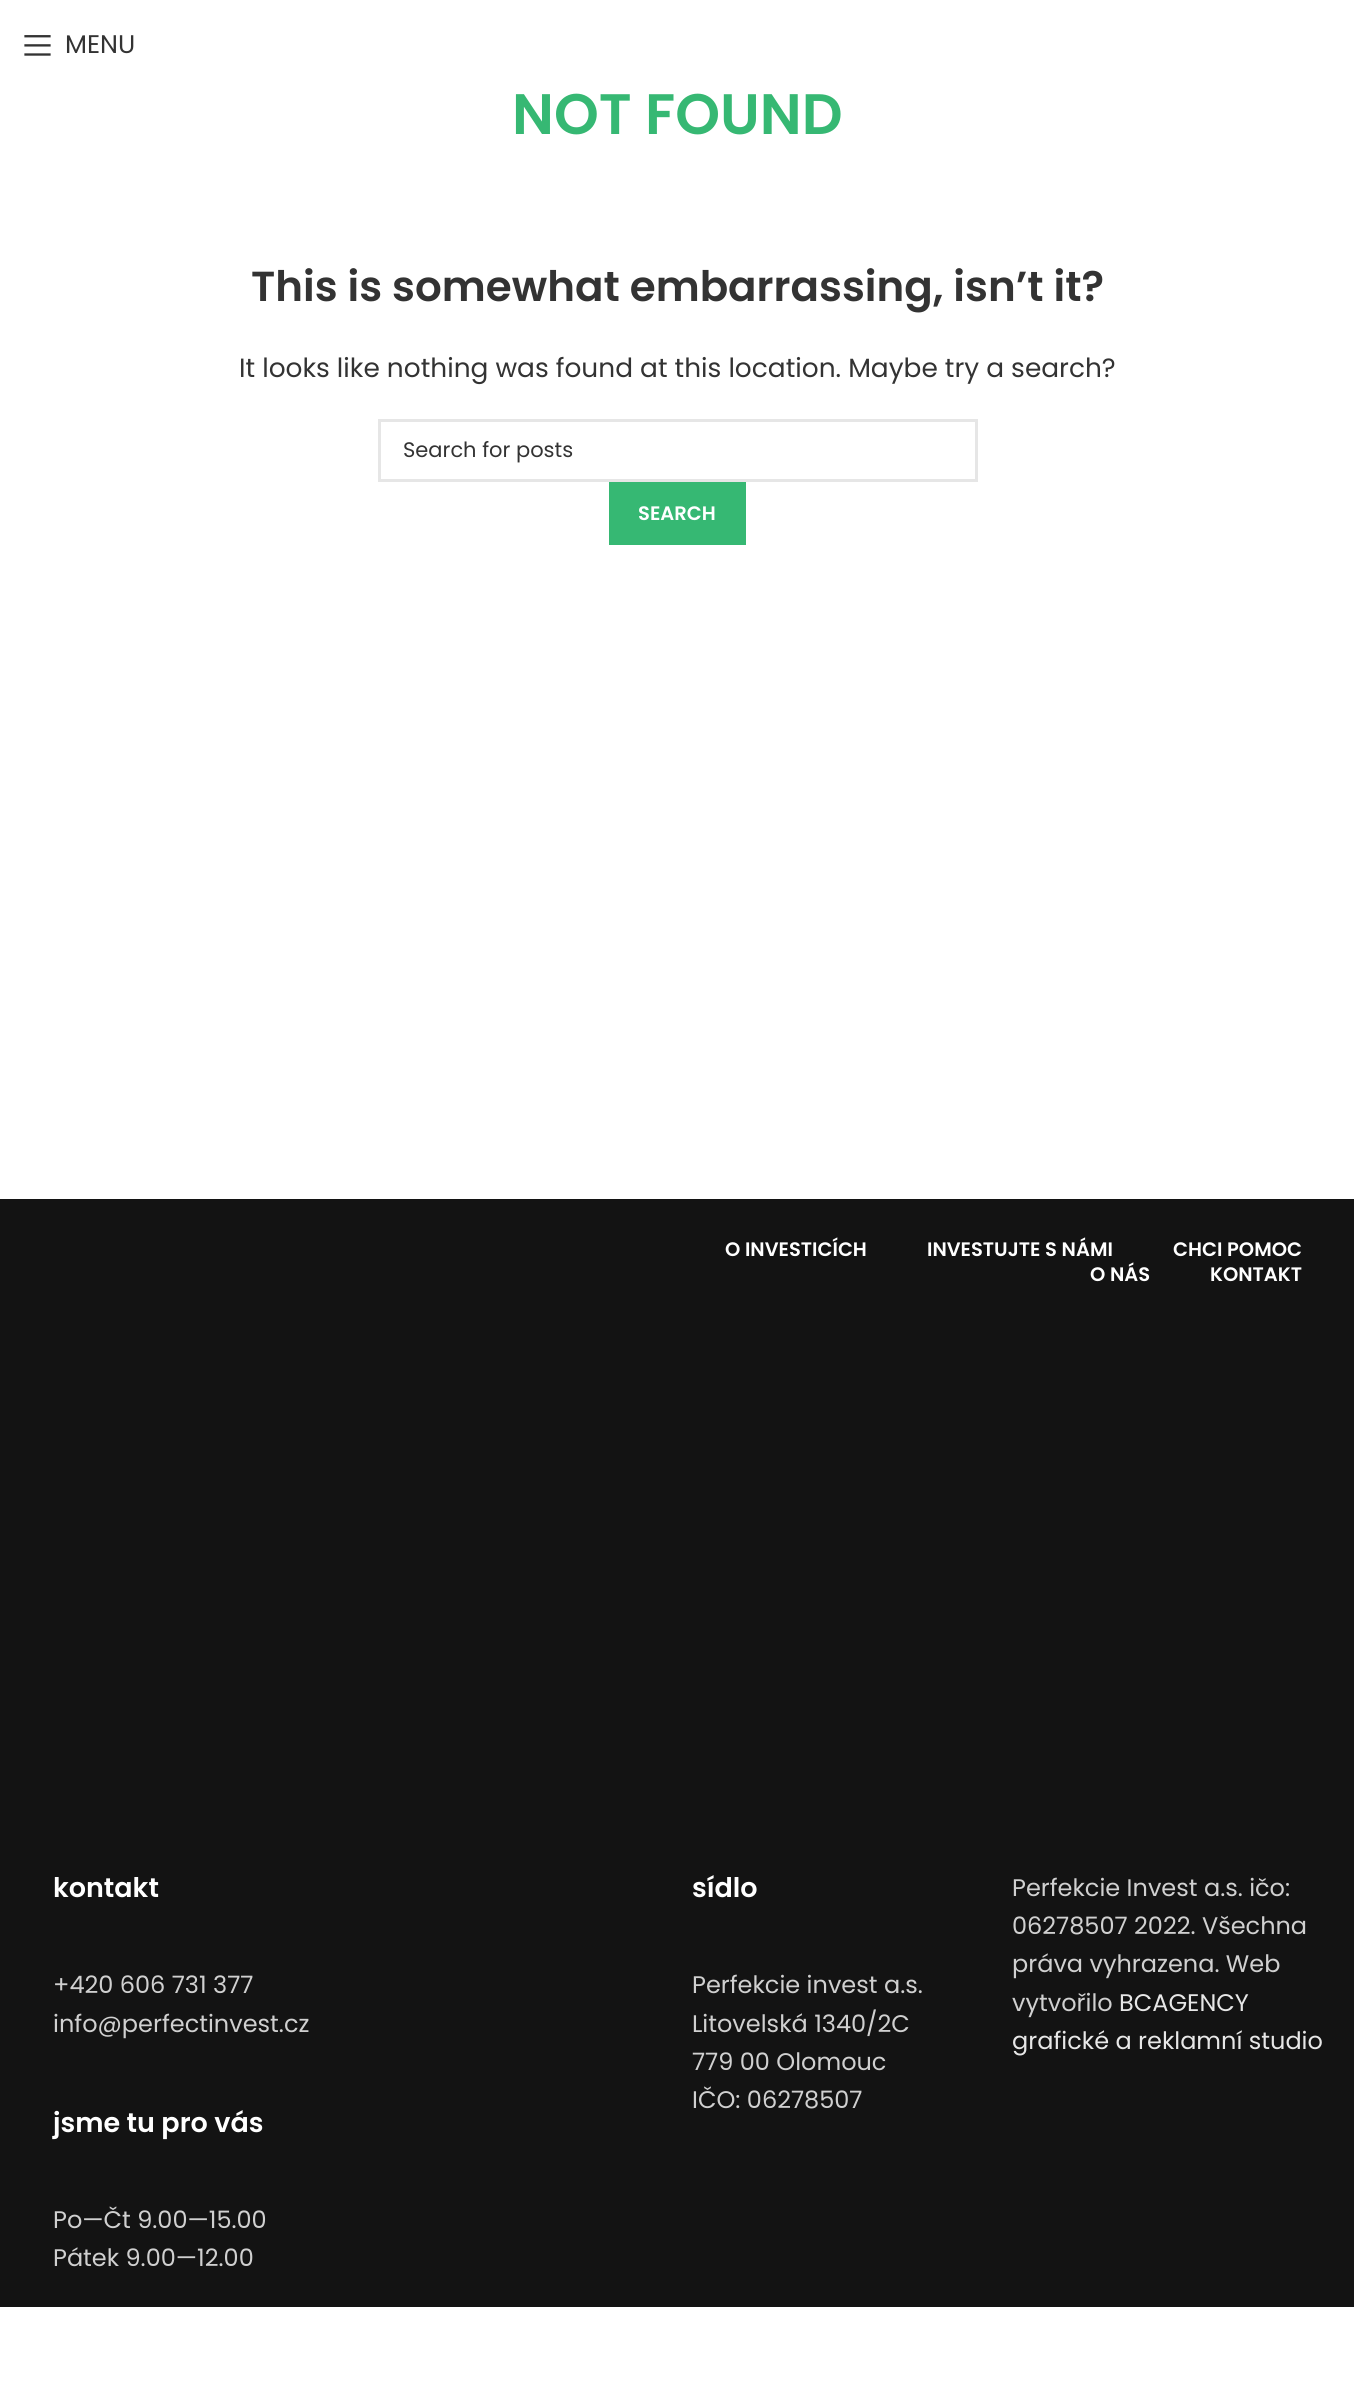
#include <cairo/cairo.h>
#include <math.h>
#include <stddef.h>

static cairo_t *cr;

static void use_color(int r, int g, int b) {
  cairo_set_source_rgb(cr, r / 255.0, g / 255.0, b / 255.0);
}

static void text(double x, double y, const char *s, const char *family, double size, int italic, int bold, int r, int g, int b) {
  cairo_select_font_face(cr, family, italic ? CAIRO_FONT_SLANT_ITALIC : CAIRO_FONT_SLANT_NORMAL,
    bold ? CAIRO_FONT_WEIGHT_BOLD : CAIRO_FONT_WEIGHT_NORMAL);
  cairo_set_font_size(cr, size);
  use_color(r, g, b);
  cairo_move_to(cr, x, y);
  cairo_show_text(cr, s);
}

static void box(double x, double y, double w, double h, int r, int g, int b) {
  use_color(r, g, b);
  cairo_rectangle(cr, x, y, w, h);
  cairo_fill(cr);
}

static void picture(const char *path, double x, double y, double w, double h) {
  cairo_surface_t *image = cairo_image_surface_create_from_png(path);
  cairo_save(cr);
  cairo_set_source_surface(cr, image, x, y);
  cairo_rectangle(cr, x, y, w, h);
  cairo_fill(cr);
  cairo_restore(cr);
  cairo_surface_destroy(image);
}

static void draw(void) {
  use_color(255, 255, 255);
  cairo_paint(cr);
  picture("img_01.png", 24, 35, 27, 21);
  cairo_rectangle(cr, 379.5, 420.5, 597, 60);
  use_color(230, 230, 230);
  cairo_set_line_width(cr, 3);
  cairo_stroke(cr);
  box(609, 482, 137, 63, 54, 184, 115);
  box(0, 1199, 1354, 1108, 19, 19, 19);
  text(65, 53, "MENU", "Poppins", 25.5, 0, 0, 51, 51, 51);
  text(512, 134, "NOT FOUND", "Poppins SemiBold", 57, 0, 0, 54, 184, 115);
  text(251, 301, "This is somewhat embarrassing, isn’t it?", "Poppins SemiBold", 42, 0, 0, 51, 51, 51);
  text(239, 377, "It looks like nothing was found at this location. Maybe try a search?", "Poppins", 26.4, 0, 0, 51, 51, 51);
  text(403, 457, "Search for posts", "Poppins", 21, 0, 0, 51, 51, 51);
  text(638, 520, "SEARCH", "Poppins SemiBold", 19.5, 0, 0, 255, 255, 255);
  text(725, 1256, "O INVESTICÍCH", "Poppins SemiBold", 19.5, 0, 0, 255, 255, 255);
  text(927, 1256, "INVESTUJTE S NÁMI", "Poppins SemiBold", 19.5, 0, 0, 255, 255, 255);
  text(1173, 1256, "CHCI POMOC", "Poppins SemiBold", 19.5, 0, 0, 255, 255, 255);
  text(1090, 1281, "O NÁS", "Poppins SemiBold", 19.5, 0, 0, 255, 255, 255);
  text(1210, 1281, "KONTAKT", "Poppins SemiBold", 19.5, 0, 0, 255, 255, 255);
  text(53, 1897, "kontakt", "Poppins SemiBold", 27, 0, 0, 255, 255, 255);
  text(53, 1993, "+420 606 731 377", "Poppins", 24, 0, 0, 208, 208, 208);
  text(53, 2032, "info@perfectinvest.cz", "Poppins", 24, 0, 0, 208, 208, 208);
  text(53, 2132, "jsme tu pro vás", "Poppins SemiBold", 27, 0, 0, 255, 255, 255);
  text(53, 2228, "Po—Čt 9.00—15.00", "Poppins", 24, 0, 0, 208, 208, 208);
  text(53, 2266, "Pátek 9.00—12.00", "Poppins", 24, 0, 0, 208, 208, 208);
  text(692, 1897, "sídlo", "Poppins SemiBold", 27, 0, 0, 255, 255, 255);
  text(692, 1993, "Perfekcie invest a.s.", "Poppins", 24, 0, 0, 208, 208, 208);
  text(692, 2032, "Litovelská 1340/2C", "Poppins", 24, 0, 0, 208, 208, 208);
  text(692, 2070, "779 00 Olomouc", "Poppins", 24, 0, 0, 208, 208, 208);
  text(692, 2108, "IČO: 06278507", "Poppins", 24, 0, 0, 208, 208, 208);
  text(1012, 1896, "Perfekcie Invest a.s. ičo:", "Poppins", 24, 0, 0, 208, 208, 208);
  text(1012, 1934, "06278507 2022. Všechna", "Poppins", 24, 0, 0, 208, 208, 208);
  text(1012, 1972, "práva vyhrazena. Web", "Poppins", 24, 0, 0, 208, 208, 208);
  text(1012, 2011, "vytvořilo", "Poppins", 24, 0, 0, 208, 208, 208);
  text(1119, 2011, "BCAGENCY", "Poppins", 24, 0, 0, 231, 231, 231);
  text(1012, 2049, "grafické a reklamní studio", "Poppins", 24, 0, 0, 231, 231, 231);
}

int main(void) {
  cairo_surface_t *surface = cairo_image_surface_create(CAIRO_FORMAT_RGB24, 1354, 2397);
  cr = cairo_create(surface);
  cairo_font_options_t *options = cairo_font_options_create();
  cairo_font_options_set_hint_metrics(options, CAIRO_HINT_METRICS_OFF);
  cairo_font_options_set_hint_style(options, CAIRO_HINT_STYLE_NONE);
  cairo_set_font_options(cr, options);
  cairo_set_miter_limit(cr, 4);
  draw();
  cairo_surface_write_to_png(surface, "out.png");
  cairo_font_options_destroy(options);
  cairo_destroy(cr);
  cairo_surface_destroy(surface);
  return 0;
}
